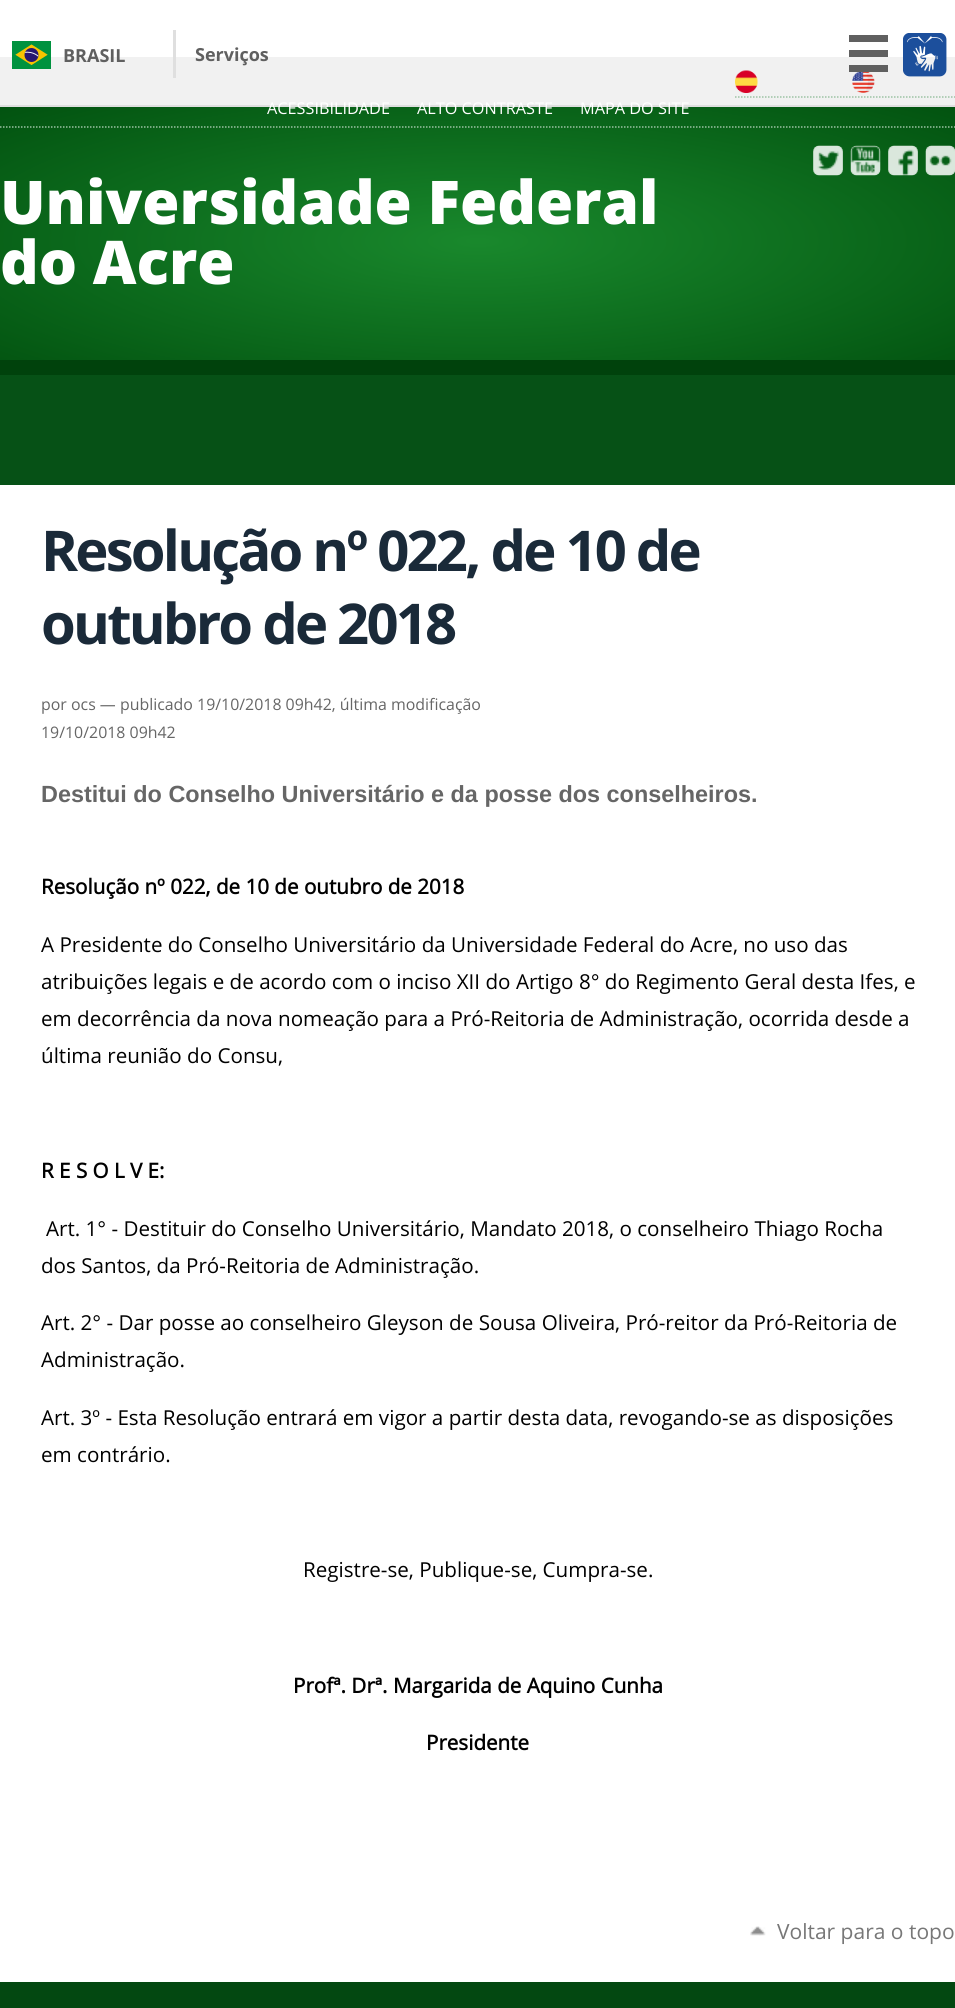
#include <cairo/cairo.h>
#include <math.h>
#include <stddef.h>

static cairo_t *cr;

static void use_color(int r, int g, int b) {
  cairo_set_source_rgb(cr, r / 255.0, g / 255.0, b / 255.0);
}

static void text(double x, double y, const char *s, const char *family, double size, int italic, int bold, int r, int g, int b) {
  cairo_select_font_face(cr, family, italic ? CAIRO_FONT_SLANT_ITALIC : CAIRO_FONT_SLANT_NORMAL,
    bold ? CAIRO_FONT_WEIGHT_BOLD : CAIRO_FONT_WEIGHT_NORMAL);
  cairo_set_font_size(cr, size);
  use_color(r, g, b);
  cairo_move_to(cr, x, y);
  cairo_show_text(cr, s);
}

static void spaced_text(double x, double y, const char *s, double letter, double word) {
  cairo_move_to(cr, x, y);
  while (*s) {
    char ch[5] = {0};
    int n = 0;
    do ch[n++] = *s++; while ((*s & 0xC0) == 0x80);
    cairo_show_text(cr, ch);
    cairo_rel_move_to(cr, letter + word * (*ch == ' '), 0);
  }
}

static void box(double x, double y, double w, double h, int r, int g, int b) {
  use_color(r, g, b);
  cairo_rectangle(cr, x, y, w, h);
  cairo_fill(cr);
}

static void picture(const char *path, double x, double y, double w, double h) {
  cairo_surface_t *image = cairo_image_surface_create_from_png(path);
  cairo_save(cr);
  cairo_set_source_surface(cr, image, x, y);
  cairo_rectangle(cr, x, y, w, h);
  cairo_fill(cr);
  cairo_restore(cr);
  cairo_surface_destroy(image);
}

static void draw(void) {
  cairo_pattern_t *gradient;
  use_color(255, 255, 255);
  cairo_paint(cr);
  box(0, 57, 955, 48, 241, 241, 241);
  box(0, 105, 955, 2, 223, 223, 223);
  box(173, 30, 3, 48, 223, 223, 223);
  picture("img_01.png", 12, 41, 39, 28);
  box(849, 35, 39, 7, 96, 96, 96);
  box(849, 50, 39, 7, 96, 96, 96);
  box(849, 65, 39, 7, 96, 96, 96);
  picture("img_02.png", 903, 33, 44, 44);
  cairo_new_path(cr);
  cairo_move_to(cr, 735, 97);
  cairo_line_to(cr, 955.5, 97);
  use_color(155, 194, 163);
  cairo_set_line_width(cr, 1.5);
  cairo_set_dash(cr, (double[]){1.5, 1.5}, 2, 0);
  cairo_stroke(cr);
  picture("img_03.png", 735, 70, 23, 23);
  picture("img_04.png", 852, 72, 23, 21);
  gradient = cairo_pattern_create_radial(0, 0, 0, 0, 0, 1);
  cairo_pattern_set_matrix(gradient, &(cairo_matrix_t){1.0 / 676, 0, 0, 1.0 / 190, -1.0 * 478 / 676, -1.0 * 241 / 190});
  cairo_pattern_add_color_stop_rgba(gradient, 0.01, 0.098, 0.533, 0.173, 1);
  cairo_pattern_add_color_stop_rgba(gradient, 1, 0.008, 0.325, 0.063, 1);
  cairo_set_source(cr, gradient);
  cairo_pattern_destroy(gradient);
  cairo_rectangle(cr, 0, 107, 955, 253);
  cairo_fill(cr);
  cairo_new_path(cr);
  cairo_move_to(cr, 0, 127);
  cairo_line_to(cr, 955.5, 127);
  use_color(155, 194, 163);
  cairo_stroke(cr);
  picture("img_05.png", 813, 145, 30, 31);
  picture("img_06.png", 850, 145, 31, 31);
  picture("img_07.png", 888, 145, 30, 31);
  picture("img_08.png", 925, 145, 30, 31);
  box(0, 360, 955, 15, 0, 66, 12);
  box(0, 375, 955, 110, 6, 81, 22);
  picture("img_09.png", 750, 1926, 16, 10);
  box(0, 1982, 955, 26, 3, 72, 17);
  text(63, 62, "BRASIL", "Open Sans", 18, 0, 1, 96, 96, 96);
  text(195, 61, "Serviços", "Open Sans", 18, 0, 1, 96, 96, 96);
  text(267, 114, "ACESSIBILIDADE", "Open Sans", 16.25, 0, 0, 255, 255, 255);
  text(417, 114, "ALTO CONTRASTE", "Open Sans", 16.25, 0, 0, 255, 255, 255);
  text(580, 114, "MAPA DO SITE", "Open Sans", 16.25, 0, 0, 255, 255, 255);
  text(0, 224, "Universidade Federal", "Open Sans ExtraBold", 60.25, 0, 0, 255, 255, 255);
  text(0, 284, "do Acre", "Open Sans ExtraBold", 60.25, 0, 0, 255, 255, 255);
  cairo_select_font_face(cr, "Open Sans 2", CAIRO_FONT_SLANT_NORMAL, CAIRO_FONT_WEIGHT_BOLD);
  cairo_set_font_size(cr, 56.2);
  use_color(26, 42, 57);
  spaced_text(41, 571, "Resolução nº 022, de 10 de", -2.8, 0);
  spaced_text(41, 644, "outubro de 2018", -2.8, 0);
  text(41, 710, "por ocs — publicado 19/10/2018 09h42, última modificação", "Open Sans", 15.9, 0, 0, 102, 102, 102);
  text(41, 738, "19/10/2018 09h42", "Open Sans", 15.9, 0, 0, 102, 102, 102);
  text(41, 802, "Destitui do Conselho Universitário e da posse dos conselheiros.", "Liberation Sans", 23.4, 0, 1, 102, 102, 102);
  text(41, 894, "Resolução nº 022, de 10 de outubro de 2018", "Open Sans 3", 20.6, 0, 1, 0, 0, 0);
  text(41, 952, "A Presidente do Conselho Universitário da Universidade Federal do Acre, no uso das", "Open Sans", 20.6, 0, 0, 0, 0, 0);
  text(41, 989, "atribuições legais e de acordo com o inciso XII do Artigo 8° do Regimento Geral desta Ifes, e", "Open Sans", 20.6, 0, 0, 0, 0, 0);
  text(41, 1026, "em decorrência da nova nomeação para a Pró-Reitoria de Administração, ocorrida desde a", "Open Sans", 20.6, 0, 0, 0, 0, 0);
  text(41, 1063, "última reunião do Consu,", "Open Sans", 20.6, 0, 0, 0, 0, 0);
  text(41, 1178, "R E S O L V E:", "Open Sans 3", 20.6, 0, 1, 0, 0, 0);
  text(46, 1236, "Art. 1° - Destituir do Conselho Universitário, Mandato 2018, o conselheiro Thiago Rocha", "Open Sans", 20.6, 0, 0, 0, 0, 0);
  text(41, 1273, "dos Santos, da Pró-Reitoria de Administração.", "Open Sans", 20.6, 0, 0, 0, 0, 0);
  text(41, 1330, "Art. 2° - Dar posse ao conselheiro Gleyson de Sousa Oliveira, Pró-reitor da Pró-Reitoria de", "Open Sans", 20.6, 0, 0, 0, 0, 0);
  text(41, 1367, "Administração.", "Open Sans", 20.6, 0, 0, 0, 0, 0);
  text(41, 1425, "Art. 3º - Esta Resolução entrará em vigor a partir desta data, revogando-se as disposições", "Open Sans", 20.6, 0, 0, 0, 0, 0);
  text(41, 1462, "em contrário.", "Open Sans", 20.6, 0, 0, 0, 0, 0);
  text(303, 1577, "Registre-se, Publique-se, Cumpra-se.", "Open Sans", 20.6, 0, 0, 0, 0, 0);
  text(293, 1693, "Profª. Drª. Margarida de Aquino Cunha", "Open Sans 3", 20.6, 0, 1, 0, 0, 0);
  text(426, 1750, "Presidente", "Open Sans 3", 20.6, 0, 1, 0, 0, 0);
  text(777, 1939, "Voltar para o topo", "Open Sans", 21, 0, 0, 119, 119, 119);
}

int main(void) {
  cairo_surface_t *surface = cairo_image_surface_create(CAIRO_FORMAT_RGB24, 955, 2008);
  cr = cairo_create(surface);
  cairo_font_options_t *options = cairo_font_options_create();
  cairo_font_options_set_hint_metrics(options, CAIRO_HINT_METRICS_OFF);
  cairo_font_options_set_hint_style(options, CAIRO_HINT_STYLE_NONE);
  cairo_set_font_options(cr, options);
  cairo_set_miter_limit(cr, 4);
  draw();
  cairo_surface_write_to_png(surface, "out.png");
  cairo_font_options_destroy(options);
  cairo_destroy(cr);
  cairo_surface_destroy(surface);
  return 0;
}
